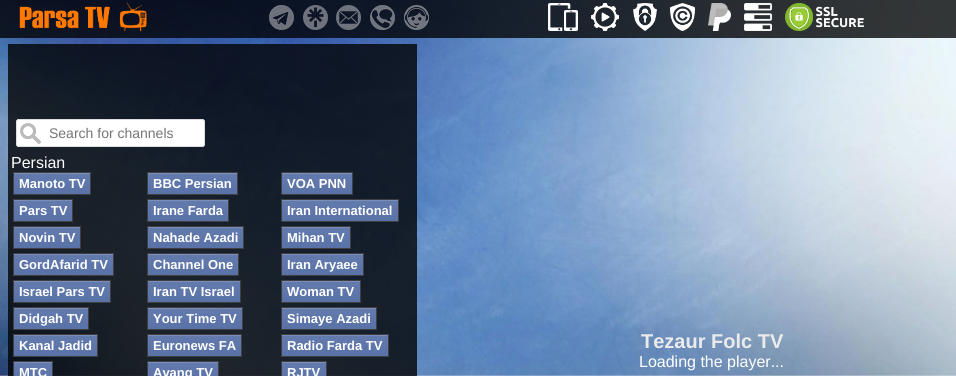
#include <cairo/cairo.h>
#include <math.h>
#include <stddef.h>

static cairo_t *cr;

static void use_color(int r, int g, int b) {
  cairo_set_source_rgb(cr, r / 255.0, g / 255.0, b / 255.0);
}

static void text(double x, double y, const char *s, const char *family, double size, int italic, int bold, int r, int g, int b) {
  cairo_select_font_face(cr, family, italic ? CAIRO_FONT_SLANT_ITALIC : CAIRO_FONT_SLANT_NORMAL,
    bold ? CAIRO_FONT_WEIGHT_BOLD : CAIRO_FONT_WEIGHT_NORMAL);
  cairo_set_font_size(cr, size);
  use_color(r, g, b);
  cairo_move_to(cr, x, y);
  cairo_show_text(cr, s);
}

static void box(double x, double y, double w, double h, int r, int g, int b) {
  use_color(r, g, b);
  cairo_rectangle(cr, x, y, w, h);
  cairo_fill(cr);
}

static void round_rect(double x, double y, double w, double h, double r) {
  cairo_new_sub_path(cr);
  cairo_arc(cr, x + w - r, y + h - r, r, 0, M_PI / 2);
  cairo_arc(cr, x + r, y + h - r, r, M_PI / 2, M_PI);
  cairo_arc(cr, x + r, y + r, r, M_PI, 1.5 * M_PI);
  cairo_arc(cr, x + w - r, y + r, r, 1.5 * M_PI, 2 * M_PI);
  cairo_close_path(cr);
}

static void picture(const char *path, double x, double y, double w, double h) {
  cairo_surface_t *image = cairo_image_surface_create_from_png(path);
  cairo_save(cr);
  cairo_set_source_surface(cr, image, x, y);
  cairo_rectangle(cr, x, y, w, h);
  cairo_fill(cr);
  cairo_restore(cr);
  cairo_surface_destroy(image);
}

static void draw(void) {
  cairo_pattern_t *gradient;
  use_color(255, 255, 255);
  cairo_paint(cr);
  picture("img_01.png", 0, 0, 956, 376);
  cairo_set_source_rgba(cr, 0, 0, 0, 0.78);
  cairo_rectangle(cr, 0, 0, 956, 38);
  cairo_fill(cr);
  picture("img_02.png", 19, 2, 128, 30);
  picture("img_03.png", 269, 5, 25, 25);
  picture("img_04.png", 303, 5, 25, 25);
  picture("img_05.png", 336, 5, 25, 25);
  picture("img_06.png", 370, 5, 25, 25);
  picture("img_07.png", 404, 5, 25, 25);
  picture("img_08.png", 548, 3, 30, 28);
  picture("img_09.png", 591, 3, 28, 28);
  picture("img_10.png", 633, 3, 24, 28);
  picture("img_11.png", 670, 3, 25, 28);
  picture("img_12.png", 708, 3, 23, 28);
  picture("img_13.png", 744, 3, 28, 28);
  picture("img_14.png", 785, 3, 79, 28);
  cairo_rectangle(cr, 8, 44, 409, 332);
  cairo_fill(cr);
  use_color(255, 255, 255);
  round_rect(16, 119, 189, 28, 3);
  cairo_fill(cr);
  picture("img_15.png", 20, 123, 21, 21);
  round_rect(16.5, 119.5, 188, 27, 2.5);
  use_color(221, 221, 221);
  cairo_set_line_width(cr, 1);
  cairo_stroke(cr);
  gradient = cairo_pattern_create_linear(52, 173, 52, 194);
  cairo_pattern_add_color_stop_rgba(gradient, 0.05, 0.388, 0.478, 0.678, 1);
  cairo_pattern_add_color_stop_rgba(gradient, 1, 0.349, 0.447, 0.655, 1);
  cairo_set_source(cr, gradient);
  cairo_pattern_destroy(gradient);
  cairo_rectangle(cr, 14, 174, 76, 20);
  cairo_fill(cr);
  box(14, 173, 76, 1, 122, 142, 185);
  cairo_rectangle(cr, 13.5, 172.5, 77, 22);
  use_color(63, 63, 66);
  cairo_stroke(cr);
  gradient = cairo_pattern_create_linear(193, 173, 193, 194);
  cairo_pattern_add_color_stop_rgba(gradient, 0.05, 0.388, 0.478, 0.678, 1);
  cairo_pattern_add_color_stop_rgba(gradient, 1, 0.349, 0.447, 0.655, 1);
  cairo_set_source(cr, gradient);
  cairo_pattern_destroy(gradient);
  cairo_rectangle(cr, 148, 174, 89, 20);
  cairo_fill(cr);
  box(148, 173, 89, 1, 122, 142, 185);
  cairo_rectangle(cr, 147.5, 172.5, 90, 22);
  use_color(63, 63, 66);
  cairo_stroke(cr);
  gradient = cairo_pattern_create_linear(317, 173, 317, 194);
  cairo_pattern_add_color_stop_rgba(gradient, 0.05, 0.388, 0.478, 0.678, 1);
  cairo_pattern_add_color_stop_rgba(gradient, 1, 0.349, 0.447, 0.655, 1);
  cairo_set_source(cr, gradient);
  cairo_pattern_destroy(gradient);
  cairo_rectangle(cr, 282, 174, 70, 20);
  cairo_fill(cr);
  box(282, 173, 70, 1, 122, 142, 185);
  cairo_rectangle(cr, 281.5, 172.5, 71, 22);
  use_color(63, 63, 66);
  cairo_stroke(cr);
  gradient = cairo_pattern_create_linear(43, 200, 43, 221);
  cairo_pattern_add_color_stop_rgba(gradient, 0.05, 0.388, 0.478, 0.678, 1);
  cairo_pattern_add_color_stop_rgba(gradient, 1, 0.349, 0.447, 0.655, 1);
  cairo_set_source(cr, gradient);
  cairo_pattern_destroy(gradient);
  cairo_rectangle(cr, 14, 201, 58, 20);
  cairo_fill(cr);
  box(14, 200, 58, 1, 122, 142, 185);
  cairo_rectangle(cr, 13.5, 199.5, 59, 22);
  use_color(63, 63, 66);
  cairo_stroke(cr);
  gradient = cairo_pattern_create_linear(188, 200, 188, 221);
  cairo_pattern_add_color_stop_rgba(gradient, 0.05, 0.388, 0.478, 0.678, 1);
  cairo_pattern_add_color_stop_rgba(gradient, 1, 0.349, 0.447, 0.655, 1);
  cairo_set_source(cr, gradient);
  cairo_pattern_destroy(gradient);
  cairo_rectangle(cr, 148, 201, 80, 20);
  cairo_fill(cr);
  box(148, 200, 80, 1, 122, 142, 185);
  cairo_rectangle(cr, 147.5, 199.5, 81, 22);
  use_color(63, 63, 66);
  cairo_stroke(cr);
  gradient = cairo_pattern_create_linear(340, 200, 340, 221);
  cairo_pattern_add_color_stop_rgba(gradient, 0.05, 0.388, 0.478, 0.678, 1);
  cairo_pattern_add_color_stop_rgba(gradient, 1, 0.349, 0.447, 0.655, 1);
  cairo_set_source(cr, gradient);
  cairo_pattern_destroy(gradient);
  cairo_rectangle(cr, 282, 201, 116, 20);
  cairo_fill(cr);
  box(282, 200, 116, 1, 122, 142, 185);
  cairo_rectangle(cr, 281.5, 199.5, 117, 22);
  use_color(63, 63, 66);
  cairo_stroke(cr);
  gradient = cairo_pattern_create_linear(47, 227, 47, 248);
  cairo_pattern_add_color_stop_rgba(gradient, 0.05, 0.388, 0.478, 0.678, 1);
  cairo_pattern_add_color_stop_rgba(gradient, 1, 0.349, 0.447, 0.655, 1);
  cairo_set_source(cr, gradient);
  cairo_pattern_destroy(gradient);
  cairo_rectangle(cr, 14, 228, 66, 20);
  cairo_fill(cr);
  box(14, 227, 66, 1, 122, 142, 185);
  cairo_rectangle(cr, 13.5, 226.5, 67, 22);
  use_color(63, 63, 66);
  cairo_stroke(cr);
  gradient = cairo_pattern_create_linear(196, 227, 196, 248);
  cairo_pattern_add_color_stop_rgba(gradient, 0.05, 0.388, 0.478, 0.678, 1);
  cairo_pattern_add_color_stop_rgba(gradient, 1, 0.349, 0.447, 0.655, 1);
  cairo_set_source(cr, gradient);
  cairo_pattern_destroy(gradient);
  cairo_rectangle(cr, 148, 228, 95, 20);
  cairo_fill(cr);
  box(148, 227, 95, 1, 122, 142, 185);
  cairo_rectangle(cr, 147.5, 226.5, 96, 22);
  use_color(63, 63, 66);
  cairo_stroke(cr);
  gradient = cairo_pattern_create_linear(316, 227, 316, 248);
  cairo_pattern_add_color_stop_rgba(gradient, 0.05, 0.388, 0.478, 0.678, 1);
  cairo_pattern_add_color_stop_rgba(gradient, 1, 0.349, 0.447, 0.655, 1);
  cairo_set_source(cr, gradient);
  cairo_pattern_destroy(gradient);
  cairo_rectangle(cr, 282, 228, 68, 20);
  cairo_fill(cr);
  box(282, 227, 68, 1, 122, 142, 185);
  cairo_rectangle(cr, 281.5, 226.5, 69, 22);
  use_color(63, 63, 66);
  cairo_stroke(cr);
  gradient = cairo_pattern_create_linear(64, 254, 64, 275);
  cairo_pattern_add_color_stop_rgba(gradient, 0.05, 0.388, 0.478, 0.678, 1);
  cairo_pattern_add_color_stop_rgba(gradient, 1, 0.349, 0.447, 0.655, 1);
  cairo_set_source(cr, gradient);
  cairo_pattern_destroy(gradient);
  cairo_rectangle(cr, 14, 255, 99, 20);
  cairo_fill(cr);
  box(14, 254, 99, 1, 122, 142, 185);
  cairo_rectangle(cr, 13.5, 253.5, 100, 22);
  use_color(63, 63, 66);
  cairo_stroke(cr);
  gradient = cairo_pattern_create_linear(193, 254, 193, 275);
  cairo_pattern_add_color_stop_rgba(gradient, 0.05, 0.388, 0.478, 0.678, 1);
  cairo_pattern_add_color_stop_rgba(gradient, 1, 0.349, 0.447, 0.655, 1);
  cairo_set_source(cr, gradient);
  cairo_pattern_destroy(gradient);
  cairo_rectangle(cr, 148, 255, 90, 20);
  cairo_fill(cr);
  box(148, 254, 90, 1, 122, 142, 185);
  cairo_rectangle(cr, 147.5, 253.5, 91, 22);
  use_color(63, 63, 66);
  cairo_stroke(cr);
  gradient = cairo_pattern_create_linear(323, 254, 323, 275);
  cairo_pattern_add_color_stop_rgba(gradient, 0.05, 0.388, 0.478, 0.678, 1);
  cairo_pattern_add_color_stop_rgba(gradient, 1, 0.349, 0.447, 0.655, 1);
  cairo_set_source(cr, gradient);
  cairo_pattern_destroy(gradient);
  cairo_rectangle(cr, 282, 255, 81, 20);
  cairo_fill(cr);
  box(282, 254, 81, 1, 122, 142, 185);
  cairo_rectangle(cr, 281.5, 253.5, 82, 22);
  use_color(63, 63, 66);
  cairo_stroke(cr);
  gradient = cairo_pattern_create_linear(62, 281, 62, 302);
  cairo_pattern_add_color_stop_rgba(gradient, 0.05, 0.388, 0.478, 0.678, 1);
  cairo_pattern_add_color_stop_rgba(gradient, 1, 0.349, 0.447, 0.655, 1);
  cairo_set_source(cr, gradient);
  cairo_pattern_destroy(gradient);
  cairo_rectangle(cr, 14, 282, 96, 20);
  cairo_fill(cr);
  box(14, 281, 96, 1, 122, 142, 185);
  cairo_rectangle(cr, 13.5, 280.5, 97, 22);
  use_color(63, 63, 66);
  cairo_stroke(cr);
  gradient = cairo_pattern_create_linear(194, 281, 194, 302);
  cairo_pattern_add_color_stop_rgba(gradient, 0.05, 0.388, 0.478, 0.678, 1);
  cairo_pattern_add_color_stop_rgba(gradient, 1, 0.349, 0.447, 0.655, 1);
  cairo_set_source(cr, gradient);
  cairo_pattern_destroy(gradient);
  cairo_rectangle(cr, 148, 282, 92, 20);
  cairo_fill(cr);
  box(148, 281, 92, 1, 122, 142, 185);
  cairo_rectangle(cr, 147.5, 280.5, 93, 22);
  use_color(63, 63, 66);
  cairo_stroke(cr);
  gradient = cairo_pattern_create_linear(321, 281, 321, 302);
  cairo_pattern_add_color_stop_rgba(gradient, 0.05, 0.388, 0.478, 0.678, 1);
  cairo_pattern_add_color_stop_rgba(gradient, 1, 0.349, 0.447, 0.655, 1);
  cairo_set_source(cr, gradient);
  cairo_pattern_destroy(gradient);
  cairo_rectangle(cr, 282, 282, 78, 20);
  cairo_fill(cr);
  box(282, 281, 78, 1, 122, 142, 185);
  cairo_rectangle(cr, 281.5, 280.5, 79, 22);
  use_color(63, 63, 66);
  cairo_stroke(cr);
  gradient = cairo_pattern_create_linear(51, 308, 51, 329);
  cairo_pattern_add_color_stop_rgba(gradient, 0.05, 0.388, 0.478, 0.678, 1);
  cairo_pattern_add_color_stop_rgba(gradient, 1, 0.349, 0.447, 0.655, 1);
  cairo_set_source(cr, gradient);
  cairo_pattern_destroy(gradient);
  cairo_rectangle(cr, 14, 309, 74, 20);
  cairo_fill(cr);
  box(14, 308, 74, 1, 122, 142, 185);
  cairo_rectangle(cr, 13.5, 307.5, 75, 22);
  use_color(63, 63, 66);
  cairo_stroke(cr);
  gradient = cairo_pattern_create_linear(195, 308, 195, 329);
  cairo_pattern_add_color_stop_rgba(gradient, 0.05, 0.388, 0.478, 0.678, 1);
  cairo_pattern_add_color_stop_rgba(gradient, 1, 0.349, 0.447, 0.655, 1);
  cairo_set_source(cr, gradient);
  cairo_pattern_destroy(gradient);
  cairo_rectangle(cr, 148, 309, 94, 20);
  cairo_fill(cr);
  box(148, 308, 94, 1, 122, 142, 185);
  cairo_rectangle(cr, 147.5, 307.5, 95, 22);
  use_color(63, 63, 66);
  cairo_stroke(cr);
  gradient = cairo_pattern_create_linear(329, 308, 329, 329);
  cairo_pattern_add_color_stop_rgba(gradient, 0.05, 0.388, 0.478, 0.678, 1);
  cairo_pattern_add_color_stop_rgba(gradient, 1, 0.349, 0.447, 0.655, 1);
  cairo_set_source(cr, gradient);
  cairo_pattern_destroy(gradient);
  cairo_rectangle(cr, 282, 309, 94, 20);
  cairo_fill(cr);
  box(282, 308, 94, 1, 122, 142, 185);
  cairo_rectangle(cr, 281.5, 307.5, 95, 22);
  use_color(63, 63, 66);
  cairo_stroke(cr);
  gradient = cairo_pattern_create_linear(56, 335, 56, 356);
  cairo_pattern_add_color_stop_rgba(gradient, 0.05, 0.388, 0.478, 0.678, 1);
  cairo_pattern_add_color_stop_rgba(gradient, 1, 0.349, 0.447, 0.655, 1);
  cairo_set_source(cr, gradient);
  cairo_pattern_destroy(gradient);
  cairo_rectangle(cr, 14, 336, 83, 20);
  cairo_fill(cr);
  box(14, 335, 83, 1, 122, 142, 185);
  cairo_rectangle(cr, 13.5, 334.5, 84, 22);
  use_color(63, 63, 66);
  cairo_stroke(cr);
  gradient = cairo_pattern_create_linear(195, 335, 195, 356);
  cairo_pattern_add_color_stop_rgba(gradient, 0.05, 0.388, 0.478, 0.678, 1);
  cairo_pattern_add_color_stop_rgba(gradient, 1, 0.349, 0.447, 0.655, 1);
  cairo_set_source(cr, gradient);
  cairo_pattern_destroy(gradient);
  cairo_rectangle(cr, 148, 336, 93, 20);
  cairo_fill(cr);
  box(148, 335, 93, 1, 122, 142, 185);
  cairo_rectangle(cr, 147.5, 334.5, 94, 22);
  use_color(63, 63, 66);
  cairo_stroke(cr);
  gradient = cairo_pattern_create_linear(335, 335, 335, 356);
  cairo_pattern_add_color_stop_rgba(gradient, 0.05, 0.388, 0.478, 0.678, 1);
  cairo_pattern_add_color_stop_rgba(gradient, 1, 0.349, 0.447, 0.655, 1);
  cairo_set_source(cr, gradient);
  cairo_pattern_destroy(gradient);
  cairo_rectangle(cr, 282, 336, 106, 20);
  cairo_fill(cr);
  box(282, 335, 106, 1, 122, 142, 185);
  cairo_rectangle(cr, 281.5, 334.5, 107, 22);
  use_color(63, 63, 66);
  cairo_stroke(cr);
  gradient = cairo_pattern_create_linear(33, 362, 33, 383);
  cairo_pattern_add_color_stop_rgba(gradient, 0.05, 0.388, 0.478, 0.678, 1);
  cairo_pattern_add_color_stop_rgba(gradient, 1, 0.349, 0.447, 0.655, 1);
  cairo_set_source(cr, gradient);
  cairo_pattern_destroy(gradient);
  cairo_rectangle(cr, 14, 363, 38, 13);
  cairo_fill(cr);
  box(14, 362, 38, 1, 122, 142, 185);
  cairo_rectangle(cr, 13.5, 361.5, 39, 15);
  use_color(63, 63, 66);
  cairo_stroke(cr);
  gradient = cairo_pattern_create_linear(183, 362, 183, 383);
  cairo_pattern_add_color_stop_rgba(gradient, 0.05, 0.388, 0.478, 0.678, 1);
  cairo_pattern_add_color_stop_rgba(gradient, 1, 0.349, 0.447, 0.655, 1);
  cairo_set_source(cr, gradient);
  cairo_pattern_destroy(gradient);
  cairo_rectangle(cr, 148, 363, 70, 13);
  cairo_fill(cr);
  box(148, 362, 70, 1, 122, 142, 185);
  cairo_rectangle(cr, 147.5, 361.5, 71, 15);
  use_color(63, 63, 66);
  cairo_stroke(cr);
  gradient = cairo_pattern_create_linear(304, 362, 304, 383);
  cairo_pattern_add_color_stop_rgba(gradient, 0.05, 0.388, 0.478, 0.678, 1);
  cairo_pattern_add_color_stop_rgba(gradient, 1, 0.349, 0.447, 0.655, 1);
  cairo_set_source(cr, gradient);
  cairo_pattern_destroy(gradient);
  cairo_rectangle(cr, 282, 363, 44, 13);
  cairo_fill(cr);
  box(282, 362, 44, 1, 122, 142, 185);
  cairo_rectangle(cr, 281.5, 361.5, 45, 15);
  use_color(63, 63, 66);
  cairo_stroke(cr);
  text(49, 138, "Search for channels", "Liberation Sans", 14, 0, 0, 117, 117, 117);
  text(11, 168, "Persian", "Liberation Sans", 16, 0, 0, 255, 255, 255);
  text(19, 188, "Manoto TV", "Liberation Sans", 13, 0, 1, 255, 255, 255);
  text(153, 188, "BBC Persian", "Liberation Sans", 13, 0, 1, 255, 255, 255);
  text(287, 188, "VOA PNN", "Liberation Sans", 13, 0, 1, 255, 255, 255);
  text(19, 215, "Pars TV", "Liberation Sans", 13, 0, 1, 255, 255, 255);
  text(153, 215, "Irane Farda", "Liberation Sans", 13, 0, 1, 255, 255, 255);
  text(287, 215, "Iran International", "Liberation Sans", 13, 0, 1, 255, 255, 255);
  text(19, 242, "Novin TV", "Liberation Sans", 13, 0, 1, 255, 255, 255);
  text(153, 242, "Nahade Azadi", "Liberation Sans", 13, 0, 1, 255, 255, 255);
  text(287, 242, "Mihan TV", "Liberation Sans", 13, 0, 1, 255, 255, 255);
  text(19, 269, "GordAfarid TV", "Liberation Sans", 13, 0, 1, 255, 255, 255);
  text(153, 269, "Channel One", "Liberation Sans", 13, 0, 1, 255, 255, 255);
  text(287, 269, "Iran Aryaee", "Liberation Sans", 13, 0, 1, 255, 255, 255);
  text(19, 296, "Israel Pars TV", "Liberation Sans", 13, 0, 1, 255, 255, 255);
  text(153, 296, "Iran TV Israel", "Liberation Sans", 13, 0, 1, 255, 255, 255);
  text(287, 296, "Woman TV", "Liberation Sans", 13, 0, 1, 255, 255, 255);
  text(19, 323, "Didgah TV", "Liberation Sans", 13, 0, 1, 255, 255, 255);
  text(153, 323, "Your Time TV", "Liberation Sans", 13, 0, 1, 255, 255, 255);
  text(287, 323, "Simaye Azadi", "Liberation Sans", 13, 0, 1, 255, 255, 255);
  text(19, 350, "Kanal Jadid", "Liberation Sans", 13, 0, 1, 255, 255, 255);
  text(153, 350, "Euronews FA", "Liberation Sans", 13, 0, 1, 255, 255, 255);
  text(287, 350, "Radio Farda TV", "Liberation Sans", 13, 0, 1, 255, 255, 255);
  text(19, 377, "MTC", "Liberation Sans", 13, 0, 1, 255, 255, 255);
  text(153, 377, "Avang TV", "Liberation Sans", 13, 0, 1, 255, 255, 255);
  text(287, 377, "RJTV", "Liberation Sans", 13, 0, 1, 255, 255, 255);
  text(641, 348, "Tezaur Folc TV", "Liberation Sans", 20, 0, 1, 235, 235, 235);
  text(639, 367, "Loading the player...", "Liberation Sans", 16, 0, 0, 255, 255, 255);
}

int main(void) {
  cairo_surface_t *surface = cairo_image_surface_create(CAIRO_FORMAT_RGB24, 956, 376);
  cr = cairo_create(surface);
  cairo_font_options_t *options = cairo_font_options_create();
  cairo_font_options_set_hint_metrics(options, CAIRO_HINT_METRICS_OFF);
  cairo_font_options_set_hint_style(options, CAIRO_HINT_STYLE_NONE);
  cairo_set_font_options(cr, options);
  cairo_set_miter_limit(cr, 4);
  draw();
  cairo_surface_write_to_png(surface, "out.png");
  cairo_font_options_destroy(options);
  cairo_destroy(cr);
  cairo_surface_destroy(surface);
  return 0;
}
